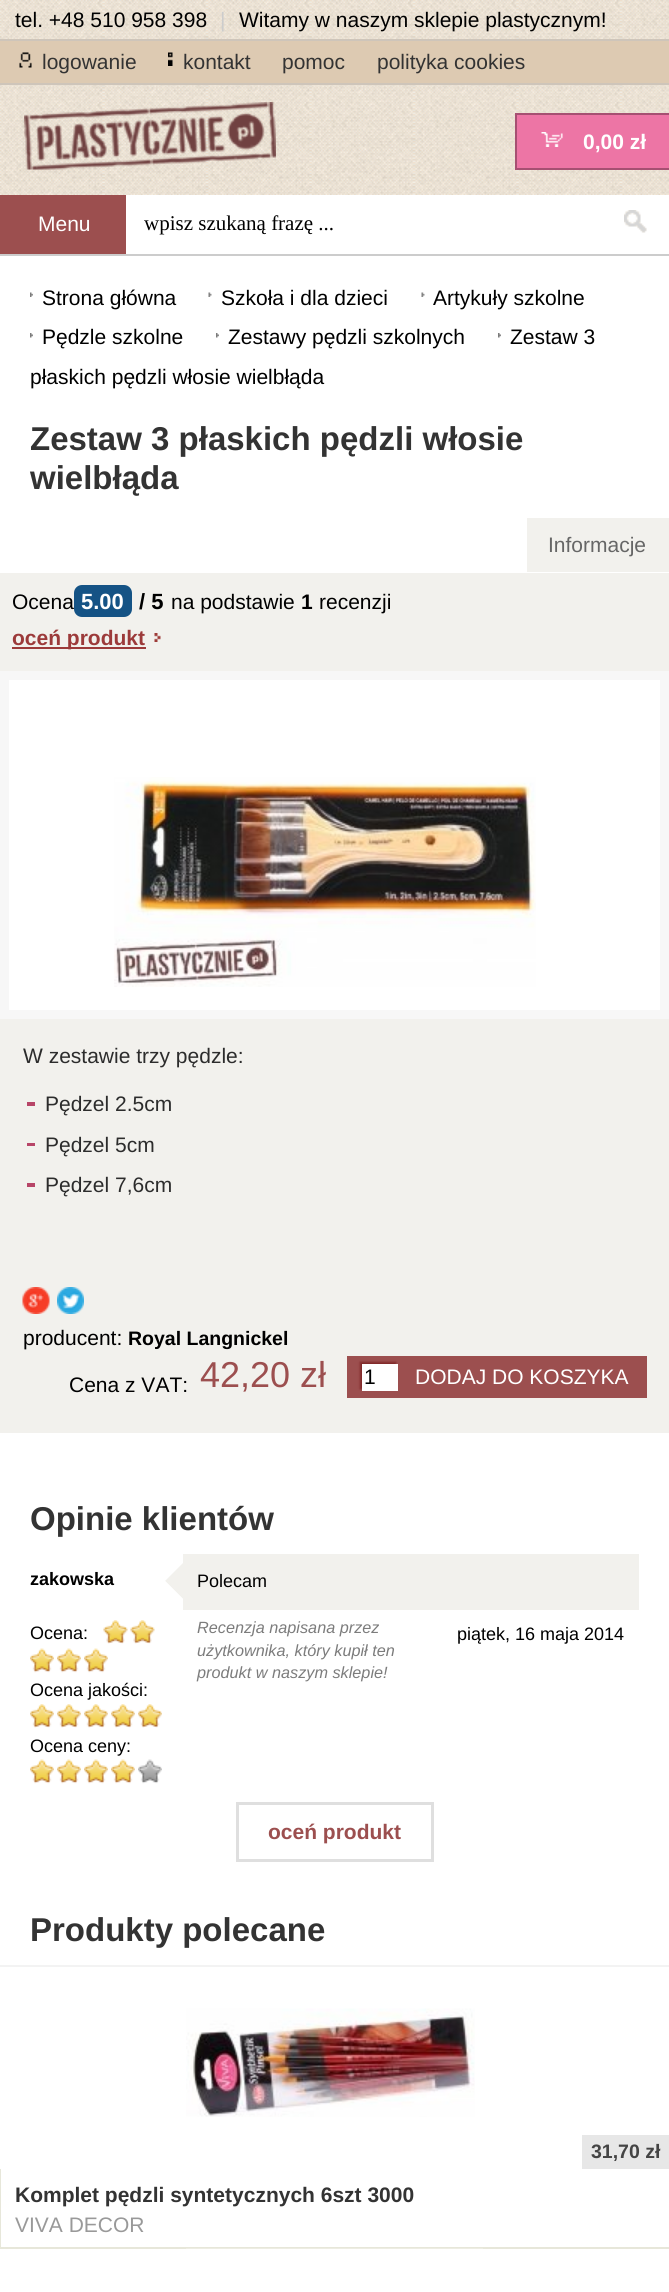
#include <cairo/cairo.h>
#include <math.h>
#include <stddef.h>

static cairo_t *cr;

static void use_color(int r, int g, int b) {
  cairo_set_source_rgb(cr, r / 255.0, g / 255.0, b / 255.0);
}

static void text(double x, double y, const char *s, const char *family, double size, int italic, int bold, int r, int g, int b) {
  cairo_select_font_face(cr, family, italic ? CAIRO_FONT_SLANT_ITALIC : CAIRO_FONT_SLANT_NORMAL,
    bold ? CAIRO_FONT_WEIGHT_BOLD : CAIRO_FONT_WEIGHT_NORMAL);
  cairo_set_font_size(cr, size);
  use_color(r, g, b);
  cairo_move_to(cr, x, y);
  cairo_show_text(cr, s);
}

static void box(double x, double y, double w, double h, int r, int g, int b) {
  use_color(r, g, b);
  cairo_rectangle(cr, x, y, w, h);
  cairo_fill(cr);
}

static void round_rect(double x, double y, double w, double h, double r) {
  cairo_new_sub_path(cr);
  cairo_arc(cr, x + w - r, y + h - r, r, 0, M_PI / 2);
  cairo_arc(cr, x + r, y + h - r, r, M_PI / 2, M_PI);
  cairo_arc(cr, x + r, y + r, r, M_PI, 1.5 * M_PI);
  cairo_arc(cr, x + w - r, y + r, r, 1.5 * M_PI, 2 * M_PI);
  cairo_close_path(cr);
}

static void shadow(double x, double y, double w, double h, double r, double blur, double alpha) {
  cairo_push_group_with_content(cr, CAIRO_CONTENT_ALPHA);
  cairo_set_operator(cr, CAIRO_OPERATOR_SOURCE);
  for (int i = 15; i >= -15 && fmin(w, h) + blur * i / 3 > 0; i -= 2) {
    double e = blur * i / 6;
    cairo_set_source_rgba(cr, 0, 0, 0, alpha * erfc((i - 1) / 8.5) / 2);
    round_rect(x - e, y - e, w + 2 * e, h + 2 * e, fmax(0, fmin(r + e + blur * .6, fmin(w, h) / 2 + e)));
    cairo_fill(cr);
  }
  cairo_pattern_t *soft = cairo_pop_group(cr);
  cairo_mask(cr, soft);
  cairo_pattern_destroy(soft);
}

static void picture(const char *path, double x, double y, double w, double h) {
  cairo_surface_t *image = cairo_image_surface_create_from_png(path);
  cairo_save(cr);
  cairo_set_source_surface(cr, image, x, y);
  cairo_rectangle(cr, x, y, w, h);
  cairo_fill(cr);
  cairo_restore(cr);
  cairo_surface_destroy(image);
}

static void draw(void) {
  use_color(255, 255, 255);
  cairo_paint(cr);
  picture("img_01.png", 0, 0, 669, 195);
  box(0, 39, 669, 2, 206, 197, 186);
  box(0, 41, 669, 42, 221, 202, 178);
  box(0, 83, 669, 2, 206, 197, 186);
  picture("img_02.png", 19, 52, 13, 16);
  picture("img_03.png", 168, 52, 5, 14);
  picture("img_04.png", 24, 102, 252, 68);
  box(517, 115, 152, 53, 237, 117, 165);
  box(515, 113, 154, 2, 166, 80, 114);
  box(515, 168, 154, 2, 166, 80, 114);
  box(515, 113, 2, 57, 166, 80, 114);
  picture("img_05.png", 541, 132, 22, 15);
  box(0, 254, 669, 2, 204, 204, 204);
  box(0, 195, 126, 59, 156, 79, 79);
  picture("img_06.png", 624, 210, 23, 23);
  picture("img_07.png", 30, 292, 3, 5);
  picture("img_08.png", 208, 292, 4, 5);
  picture("img_08.png", 421, 292, 4, 5);
  picture("img_09.png", 30, 333, 3, 5);
  picture("img_09.png", 216, 333, 3, 5);
  picture("img_10.png", 498, 333, 3, 5);
  box(0, 573, 669, 860, 242, 241, 237);
  box(527, 518, 142, 54, 242, 241, 237);
  use_color(21, 83, 133);
  round_rect(74, 585, 58, 32, 8);
  cairo_fill(cr);
  box(12, 647, 134, 2, 156, 58, 58);
  picture("img_11.png", 154, 633, 7, 9);
  box(0, 671, 669, 348, 247, 247, 247);
  box(9, 680, 651, 330, 255, 255, 255);
  picture("img_12.png", 114, 777, 422, 210);
  box(27, 1102, 8, 4, 183, 69, 104);
  box(27, 1143, 8, 3, 183, 69, 104);
  box(27, 1183, 8, 4, 183, 69, 104);
  picture("img_13.png", 22, 1287, 28, 27);
  picture("img_14.png", 57, 1287, 27, 27);
  box(347, 1356, 300, 42, 156, 79, 79);
  use_color(129, 41, 41);
  shadow(360, 1362, 36, 27, 0, 1, 1);
  box(362, 1364, 36, 27, 255, 255, 255);
  picture("img_15.png", 103, 1620, 25, 24);
  picture("img_15.png", 130, 1620, 25, 24);
  picture("img_16.png", 30, 1648, 24, 25);
  picture("img_16.png", 57, 1648, 24, 25);
  picture("img_16.png", 84, 1648, 24, 25);
  picture("img_17.png", 30, 1704, 24, 24);
  picture("img_17.png", 57, 1704, 24, 24);
  picture("img_17.png", 84, 1704, 24, 24);
  picture("img_17.png", 111, 1704, 24, 24);
  picture("img_17.png", 138, 1704, 24, 24);
  picture("img_16.png", 30, 1759, 24, 25);
  picture("img_16.png", 57, 1759, 24, 25);
  picture("img_16.png", 84, 1759, 24, 25);
  picture("img_16.png", 111, 1759, 24, 25);
  picture("img_18.png", 138, 1759, 24, 25);
  box(183, 1554, 456, 56, 242, 241, 237);
  cairo_new_path(cr);
  cairo_move_to(cr, 183, 1563);
  cairo_line_to(cr, 183, 1599);
  cairo_line_to(cr, 165, 1581);
  cairo_close_path(cr);
  cairo_fill(cr);
  use_color(255, 255, 255);
  cairo_new_path(cr);
  cairo_move_to(cr, 183, 1599);
  cairo_line_to(cr, 147, 1599);
  cairo_line_to(cr, 165, 1581);
  cairo_close_path(cr);
  cairo_fill(cr);
  cairo_rectangle(cr, 237.5, 1803.5, 195, 57);
  use_color(223, 223, 223);
  cairo_set_line_width(cr, 3);
  cairo_stroke(cr);
  box(0, 1965, 669, 2, 243, 243, 243);
  box(0, 2247, 669, 2, 231, 231, 218);
  box(0, 2169, 1, 80, 231, 231, 218);
  picture("img_19.png", 186, 2008, 289, 109);
  box(582, 2135, 87, 34, 231, 231, 231);
  box(186, 2248, 297, 1, 237, 237, 227);
  text(15, 27, "tel. +48 510 958 398", "Liberation Sans", 21, 0, 0, 0, 0, 0);
  text(220, 27, "|", "Liberation Sans", 21, 0, 0, 204, 204, 204);
  text(239, 27, "Witamy w naszym sklepie plastycznym!", "Liberation Sans", 21, 0, 0, 0, 0, 0);
  text(42, 69, "logowanie", "Liberation Sans", 21, 0, 0, 51, 51, 51);
  text(183, 69, "kontakt", "Liberation Sans", 21, 0, 0, 51, 51, 51);
  text(282, 69, "pomoc", "Liberation Sans", 21, 0, 0, 51, 51, 51);
  text(377, 69, "polityka cookies", "Liberation Sans", 21, 0, 0, 51, 51, 51);
  text(583, 149, "0,00 zł", "Liberation Sans", 21, 0, 1, 255, 255, 255);
  text(38, 231, "Menu", "Liberation Sans", 21, 0, 0, 255, 255, 255);
  text(144, 230, "wpisz szukaną frazę ...", "Liberation Serif", 21, 0, 0, 0, 0, 0);
  text(42, 305, "Strona główna", "Liberation Sans", 21, 0, 0, 0, 0, 0);
  text(221, 305, "Szkoła i dla dzieci", "Liberation Sans", 21, 0, 0, 0, 0, 0);
  text(433, 305, "Artykuły szkolne", "Liberation Sans", 21, 0, 0, 0, 0, 0);
  text(42, 344, "Pędzle szkolne", "Liberation Sans", 21, 0, 0, 0, 0, 0);
  text(228, 344, "Zestawy pędzli szkolnych", "Liberation Sans", 21, 0, 0, 0, 0, 0);
  text(510, 344, "Zestaw 3", "Liberation Sans", 21, 0, 0, 0, 0, 0);
  text(30, 384, "płaskich pędzli włosie wielbłąda", "Liberation Sans", 21, 0, 0, 0, 0, 0);
  text(30, 450, "Zestaw 3 płaskich pędzli włosie", "Liberation Sans", 33, 0, 1, 51, 51, 51);
  text(30, 489, "wielbłąda", "Liberation Sans", 33, 0, 1, 51, 51, 51);
  text(548, 552, "Informacje", "Liberation Sans", 21, 0, 0, 102, 102, 102);
  text(12, 609, "Ocena", "Liberation Sans", 21, 0, 0, 0, 0, 0);
  text(81, 609, "5.00", "Liberation Sans", 22, 0, 1, 255, 255, 255);
  text(139, 609, "/ 5", "Liberation Sans", 22, 0, 1, 0, 0, 0);
  text(171, 609, "na podstawie", "Liberation Sans", 21, 0, 0, 0, 0, 0);
  text(301, 609, "1", "Liberation Sans", 21, 0, 1, 0, 0, 0);
  text(319, 609, "recenzji", "Liberation Sans", 21, 0, 0, 0, 0, 0);
  text(12, 645, "oceń produkt", "Liberation Sans", 21, 0, 1, 156, 58, 58);
  text(23, 1063, "W zestawie trzy pędzle:", "Liberation Sans", 21, 0, 0, 44, 44, 44);
  text(45, 1111, "Pędzel 2.5cm", "Liberation Sans", 21, 0, 0, 44, 44, 44);
  text(45, 1152, "Pędzel 5cm", "Liberation Sans", 21, 0, 0, 44, 44, 44);
  text(45, 1192, "Pędzel 7,6cm", "Liberation Sans", 21, 0, 0, 44, 44, 44);
  text(23, 1345, "producent:", "Liberation Sans", 21, 0, 0, 0, 0, 0);
  text(128, 1345, "Royal Langnickel", "Liberation Sans", 19.5, 0, 1, 0, 0, 0);
  text(69, 1392, "Cena z VAT:", "Liberation Sans", 21, 0, 0, 0, 0, 0);
  text(200, 1387, "42,20 zł", "Liberation Sans", 36, 0, 0, 156, 79, 79);
  text(364, 1384, "1", "Liberation Sans", 21, 0, 0, 0, 0, 0);
  text(415, 1384, "DODAJ DO KOSZYKA", "Liberation Sans", 21, 0, 0, 255, 255, 255);
  text(30, 1530, "Opinie klientów", "Liberation Sans", 33, 0, 1, 51, 51, 51);
  text(30, 1585, "zakowska", "Liberation Sans", 18, 0, 1, 0, 0, 0);
  text(30, 1639, "Ocena:", "Liberation Sans", 18, 0, 0, 0, 0, 0);
  text(30, 1696, "Ocena jakości:", "Liberation Sans", 18, 0, 0, 0, 0, 0);
  text(30, 1752, "Ocena ceny:", "Liberation Sans", 18, 0, 0, 0, 0, 0);
  text(197, 1587, "Polecam", "Liberation Sans", 18, 0, 0, 0, 0, 0);
  text(197, 1633, "Recenzja napisana przez", "Liberation Sans", 16.25, 1, 0, 124, 124, 124);
  text(197, 1656, "użytkownika, który kupił ten", "Liberation Sans", 16.25, 1, 0, 124, 124, 124);
  text(197, 1678, "produkt w naszym sklepie!", "Liberation Sans", 16.25, 1, 0, 124, 124, 124);
  text(457, 1640, "piątek, 16 maja 2014", "Liberation Sans", 18, 0, 0, 0, 0, 0);
  text(268, 1839, "oceń produkt", "Liberation Sans", 21, 0, 1, 156, 79, 79);
  text(30, 1941, "Produkty polecane", "Liberation Sans", 33, 0, 1, 51, 51, 51);
  text(591, 2158, "31,70 zł", "Liberation Sans", 19.5, 0, 1, 68, 68, 68);
  text(15, 2202, "Komplet pędzli syntetycznych 6szt 3000", "Liberation Sans", 21, 0, 1, 51, 51, 51);
  text(15, 2232, "VIVA DECOR", "Liberation Sans", 21, 0, 0, 153, 153, 153);
}

int main(void) {
  cairo_surface_t *surface = cairo_image_surface_create(CAIRO_FORMAT_RGB24, 669, 2292);
  cr = cairo_create(surface);
  cairo_font_options_t *options = cairo_font_options_create();
  cairo_font_options_set_hint_metrics(options, CAIRO_HINT_METRICS_OFF);
  cairo_font_options_set_hint_style(options, CAIRO_HINT_STYLE_NONE);
  cairo_set_font_options(cr, options);
  cairo_set_miter_limit(cr, 4);
  draw();
  cairo_surface_write_to_png(surface, "out.png");
  cairo_font_options_destroy(options);
  cairo_destroy(cr);
  cairo_surface_destroy(surface);
  return 0;
}
